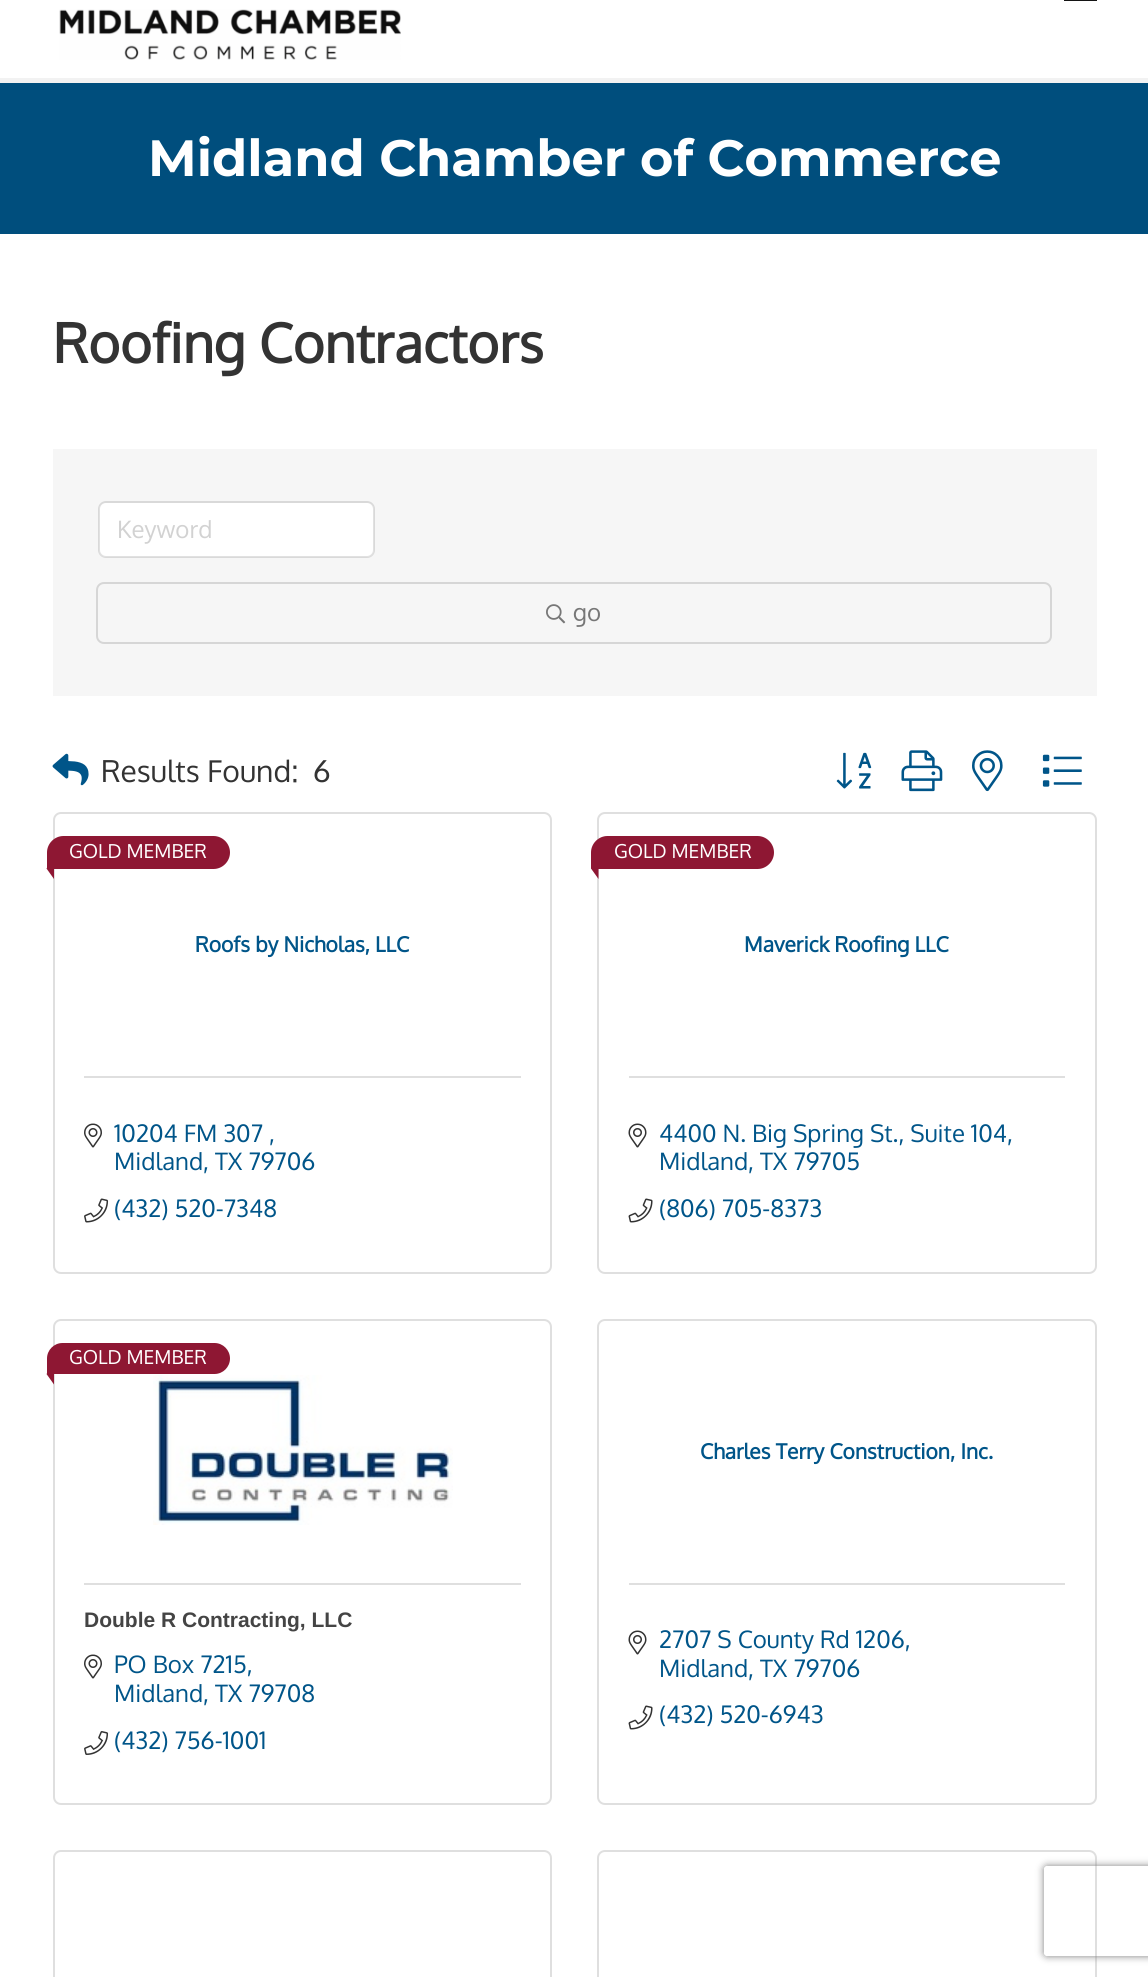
#include <cairo/cairo.h>
#include <math.h>
#include <stddef.h>

static cairo_t *cr;

static void use_color(int r, int g, int b) {
  cairo_set_source_rgb(cr, r / 255.0, g / 255.0, b / 255.0);
}

static void text(double x, double y, const char *s, const char *family, double size, int italic, int bold, int r, int g, int b) {
  cairo_select_font_face(cr, family, italic ? CAIRO_FONT_SLANT_ITALIC : CAIRO_FONT_SLANT_NORMAL,
    bold ? CAIRO_FONT_WEIGHT_BOLD : CAIRO_FONT_WEIGHT_NORMAL);
  cairo_set_font_size(cr, size);
  use_color(r, g, b);
  cairo_move_to(cr, x, y);
  cairo_show_text(cr, s);
}

static void box(double x, double y, double w, double h, int r, int g, int b) {
  use_color(r, g, b);
  cairo_rectangle(cr, x, y, w, h);
  cairo_fill(cr);
}

static void round_rect(double x, double y, double w, double h, double r) {
  cairo_new_sub_path(cr);
  cairo_arc(cr, x + w - r, y + h - r, r, 0, M_PI / 2);
  cairo_arc(cr, x + r, y + h - r, r, M_PI / 2, M_PI);
  cairo_arc(cr, x + r, y + r, r, M_PI, 1.5 * M_PI);
  cairo_arc(cr, x + w - r, y + r, r, 1.5 * M_PI, 2 * M_PI);
  cairo_close_path(cr);
}

static void shadow(double x, double y, double w, double h, double r, double blur, double alpha) {
  cairo_push_group_with_content(cr, CAIRO_CONTENT_ALPHA);
  cairo_set_operator(cr, CAIRO_OPERATOR_SOURCE);
  for (int i = 15; i >= -15 && fmin(w, h) + blur * i / 3 > 0; i -= 2) {
    double e = blur * i / 6;
    cairo_set_source_rgba(cr, 0, 0, 0, alpha * erfc((i - 1) / 8.5) / 2);
    round_rect(x - e, y - e, w + 2 * e, h + 2 * e, fmax(0, fmin(r + e + blur * .6, fmin(w, h) / 2 + e)));
    cairo_fill(cr);
  }
  cairo_pattern_t *soft = cairo_pop_group(cr);
  cairo_mask(cr, soft);
  cairo_pattern_destroy(soft);
}

static void picture(const char *path, double x, double y, double w, double h) {
  cairo_surface_t *image = cairo_image_surface_create_from_png(path);
  cairo_save(cr);
  cairo_set_source_surface(cr, image, x, y);
  cairo_rectangle(cr, x, y, w, h);
  cairo_fill(cr);
  cairo_restore(cr);
  cairo_surface_destroy(image);
}

static void draw(void) {
  use_color(255, 255, 255);
  cairo_paint(cr);
  box(0, 78, 1148, 5, 242, 242, 242);
  box(1064, 0, 33, 1, 20, 20, 20);
  picture("img_01.png", 59, 9, 342, 51);
  box(0, 83, 1148, 151, 0, 78, 125);
  box(53, 449, 1044, 247, 246, 246, 246);
  use_color(255, 255, 255);
  round_rect(99, 503, 275, 54, 6);
  cairo_fill(cr);
  round_rect(99, 502, 275, 55, 7);
  cairo_set_source_rgba(cr, 0, 0, 0, 0.12);
  cairo_stroke(cr);
  round_rect(97, 583, 954, 60, 7);
  use_color(214, 214, 214);
  cairo_stroke(cr);
  picture("img_02.png", 546, 604, 20, 20);
  picture("img_03.png", 52, 753, 37, 33);
  picture("img_04.png", 836, 752, 36, 37);
  picture("img_05.png", 901, 750, 42, 42);
  picture("img_06.png", 972, 750, 31, 42);
  picture("img_07.png", 1042, 754, 40, 33);
  round_rect(54, 813, 497, 460, 7);
  use_color(223, 223, 223);
  cairo_stroke(cr);
  use_color(142, 23, 51);
  cairo_new_path(cr);
  cairo_move_to(cr, 63.5, 836);
  cairo_line_to(cr, 213.5, 836);
  cairo_curve_to(cr, 222.5, 836, 230, 843.5, 230, 852.5);
  cairo_curve_to(cr, 230, 861.5, 222.5, 869, 213.5, 869);
  cairo_line_to(cr, 48, 869);
  cairo_curve_to(cr, 47.5, 869, 47, 868.5, 47, 868);
  cairo_line_to(cr, 47, 852.5);
  cairo_curve_to(cr, 47, 843.5, 54.5, 836, 63.5, 836);
  cairo_close_path(cr);
  cairo_fill(cr);
  cairo_new_path(cr);
  cairo_move_to(cr, 54, 858);
  cairo_line_to(cr, 54, 879);
  cairo_line_to(cr, 46.5, 868.5);
  cairo_close_path(cr);
  cairo_fill(cr);
  box(84, 1076, 437, 2, 223, 223, 223);
  picture("img_08.png", 84, 1123, 18, 25);
  picture("img_09.png", 84, 1198, 25, 25);
  round_rect(598, 813, 498, 460, 7);
  cairo_stroke(cr);
  use_color(142, 23, 51);
  cairo_new_path(cr);
  cairo_move_to(cr, 607.5, 836);
  cairo_line_to(cr, 757.5, 836);
  cairo_curve_to(cr, 766.5, 836, 774, 843.5, 774, 852.5);
  cairo_curve_to(cr, 774, 861.5, 766.5, 869, 757.5, 869);
  cairo_line_to(cr, 592, 869);
  cairo_curve_to(cr, 591.5, 869, 591, 868.5, 591, 868);
  cairo_line_to(cr, 591, 852.5);
  cairo_curve_to(cr, 591, 843.5, 598.5, 836, 607.5, 836);
  cairo_close_path(cr);
  cairo_fill(cr);
  cairo_new_path(cr);
  cairo_move_to(cr, 598.5, 858);
  cairo_line_to(cr, 598.5, 879);
  cairo_line_to(cr, 591, 868.5);
  cairo_close_path(cr);
  cairo_fill(cr);
  box(629, 1076, 436, 2, 223, 223, 223);
  picture("img_10.png", 628, 1123, 19, 25);
  picture("img_11.png", 628, 1198, 25, 25);
  round_rect(54, 1320, 497, 484, 7);
  cairo_stroke(cr);
  use_color(142, 23, 51);
  cairo_new_path(cr);
  cairo_move_to(cr, 62.5, 1343);
  cairo_line_to(cr, 214.5, 1343);
  cairo_curve_to(cr, 223, 1343, 230, 1350, 230, 1358.5);
  cairo_curve_to(cr, 230, 1367, 223, 1374, 214.5, 1374);
  cairo_line_to(cr, 48, 1374);
  cairo_curve_to(cr, 47.5, 1374, 47, 1373.5, 47, 1373);
  cairo_line_to(cr, 47, 1358.5);
  cairo_curve_to(cr, 47, 1350, 54, 1343, 62.5, 1343);
  cairo_close_path(cr);
  cairo_fill(cr);
  cairo_new_path(cr);
  cairo_move_to(cr, 54, 1363.5);
  cairo_line_to(cr, 54, 1384.5);
  cairo_line_to(cr, 46.5, 1374);
  cairo_close_path(cr);
  cairo_fill(cr);
  picture("img_12.png", 153, 1375, 300, 150);
  box(84, 1583, 437, 2, 223, 223, 223);
  picture("img_08.png", 84, 1654, 18, 25);
  picture("img_13.png", 84, 1731, 25, 24);
  round_rect(598, 1320, 498, 484, 7);
  cairo_stroke(cr);
  box(629, 1583, 436, 2, 223, 223, 223);
  picture("img_10.png", 628, 1630, 19, 25);
  picture("img_11.png", 628, 1705, 25, 25);
  round_rect(54, 1851, 497, 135, 7);
  cairo_stroke(cr);
  round_rect(598, 1851, 498, 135, 7);
  cairo_stroke(cr);
  cairo_save(cr);
  cairo_set_fill_rule(cr, CAIRO_FILL_RULE_EVEN_ODD);
  cairo_new_path(cr);
  cairo_move_to(cr, 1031, 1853);
  cairo_line_to(cr, 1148, 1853);
  cairo_line_to(cr, 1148, 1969);
  cairo_line_to(cr, 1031, 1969);
  cairo_close_path(cr);
  cairo_move_to(cr, 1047, 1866);
  cairo_line_to(cr, 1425, 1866);
  cairo_curve_to(cr, 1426.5, 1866, 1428, 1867.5, 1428, 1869);
  cairo_line_to(cr, 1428, 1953);
  cairo_curve_to(cr, 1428, 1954.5, 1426.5, 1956, 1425, 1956);
  cairo_line_to(cr, 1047, 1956);
  cairo_curve_to(cr, 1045.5, 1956, 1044, 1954.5, 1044, 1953);
  cairo_line_to(cr, 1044, 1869);
  cairo_curve_to(cr, 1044, 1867.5, 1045.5, 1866, 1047, 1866);
  cairo_close_path(cr);
  cairo_clip(cr);
  use_color(128, 128, 128);
  shadow(1044, 1866, 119, 90, 3, 4, 1);
  cairo_restore(cr);
  text(148, 176, "Midland Chamber of Commerce", "Montserrat", 51, 0, 1, 255, 255, 255);
  text(53, 363, "Roofing Contractors", "Oxygen", 54, 0, 1, 51, 51, 51);
  text(117, 538, "Keyword", "Oxygen", 24, 0, 0, 210, 210, 210);
  text(573, 621, "go", "Oxygen", 24, 0, 0, 119, 119, 119);
  text(101, 782, "Results Found:", "Oxygen", 30, 0, 0, 51, 51, 51);
  text(313, 782, "6", "Oxygen", 30, 0, 0, 51, 51, 51);
  text(69, 858, "GOLD MEMBER", "Oxygen", 19.25, 0, 0, 255, 255, 255);
  text(195, 952, "Roofs by Nicholas, LLC", "Oxygen", 21, 0, 1, 0, 85, 137);
  text(114, 1142, "10204 FM 307 ,", "Oxygen", 24, 0, 0, 0, 85, 137);
  text(114, 1170, "Midland, TX 79706", "Oxygen", 24, 0, 0, 0, 85, 137);
  text(114, 1217, "(432) 520-7348", "Oxygen", 24, 0, 0, 0, 85, 137);
  text(614, 858, "GOLD MEMBER", "Oxygen", 19.25, 0, 0, 255, 255, 255);
  text(744, 952, "Maverick Roofing LLC", "Oxygen", 21, 0, 1, 0, 85, 137);
  text(659, 1142, "4400 N. Big Spring St., Suite 104,", "Oxygen", 24, 0, 0, 0, 85, 137);
  text(659, 1170, "Midland, TX 79705", "Oxygen", 24, 0, 0, 0, 85, 137);
  text(659, 1217, "(806) 705-8373", "Oxygen", 24, 0, 0, 0, 85, 137);
  text(69, 1364, "GOLD MEMBER", "Oxygen", 19.25, 0, 0, 255, 255, 255);
  text(84, 1627, "Double R Contracting, LLC", "Liberation Sans", 21, 0, 1, 68, 68, 68);
  text(114, 1673, "PO Box 7215,", "Oxygen", 24, 0, 0, 0, 85, 137);
  text(114, 1702, "Midland, TX 79708", "Oxygen", 24, 0, 0, 0, 85, 137);
  text(114, 1749, "(432) 756-1001", "Oxygen", 24, 0, 0, 0, 85, 137);
  text(700, 1459, "Charles Terry Construction, Inc.", "Oxygen", 21, 0, 1, 0, 85, 137);
  text(659, 1648, "2707 S County Rd 1206,", "Oxygen", 24, 0, 0, 0, 85, 137);
  text(659, 1677, "Midland, TX 79706", "Oxygen", 24, 0, 0, 0, 85, 137);
  text(659, 1723, "(432) 520-6943", "Oxygen", 24, 0, 0, 0, 85, 137);
}

int main(void) {
  cairo_surface_t *surface = cairo_image_surface_create(CAIRO_FORMAT_RGB24, 1148, 1977);
  cr = cairo_create(surface);
  cairo_font_options_t *options = cairo_font_options_create();
  cairo_font_options_set_hint_metrics(options, CAIRO_HINT_METRICS_OFF);
  cairo_font_options_set_hint_style(options, CAIRO_HINT_STYLE_NONE);
  cairo_set_font_options(cr, options);
  cairo_set_miter_limit(cr, 4);
  draw();
  cairo_surface_write_to_png(surface, "out.png");
  cairo_font_options_destroy(options);
  cairo_destroy(cr);
  cairo_surface_destroy(surface);
  return 0;
}
